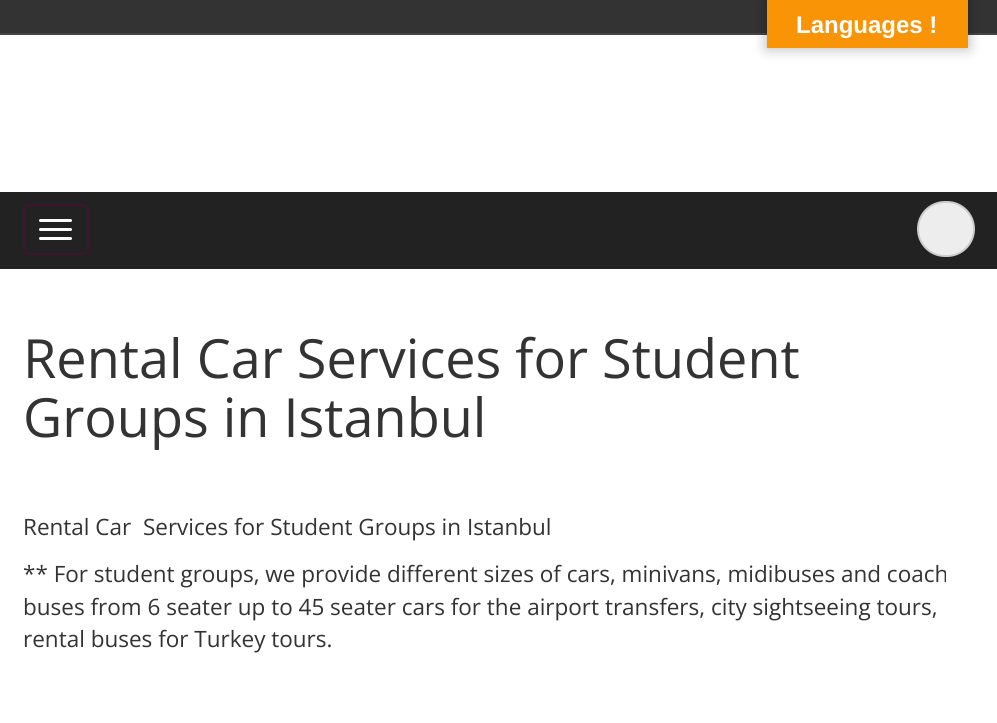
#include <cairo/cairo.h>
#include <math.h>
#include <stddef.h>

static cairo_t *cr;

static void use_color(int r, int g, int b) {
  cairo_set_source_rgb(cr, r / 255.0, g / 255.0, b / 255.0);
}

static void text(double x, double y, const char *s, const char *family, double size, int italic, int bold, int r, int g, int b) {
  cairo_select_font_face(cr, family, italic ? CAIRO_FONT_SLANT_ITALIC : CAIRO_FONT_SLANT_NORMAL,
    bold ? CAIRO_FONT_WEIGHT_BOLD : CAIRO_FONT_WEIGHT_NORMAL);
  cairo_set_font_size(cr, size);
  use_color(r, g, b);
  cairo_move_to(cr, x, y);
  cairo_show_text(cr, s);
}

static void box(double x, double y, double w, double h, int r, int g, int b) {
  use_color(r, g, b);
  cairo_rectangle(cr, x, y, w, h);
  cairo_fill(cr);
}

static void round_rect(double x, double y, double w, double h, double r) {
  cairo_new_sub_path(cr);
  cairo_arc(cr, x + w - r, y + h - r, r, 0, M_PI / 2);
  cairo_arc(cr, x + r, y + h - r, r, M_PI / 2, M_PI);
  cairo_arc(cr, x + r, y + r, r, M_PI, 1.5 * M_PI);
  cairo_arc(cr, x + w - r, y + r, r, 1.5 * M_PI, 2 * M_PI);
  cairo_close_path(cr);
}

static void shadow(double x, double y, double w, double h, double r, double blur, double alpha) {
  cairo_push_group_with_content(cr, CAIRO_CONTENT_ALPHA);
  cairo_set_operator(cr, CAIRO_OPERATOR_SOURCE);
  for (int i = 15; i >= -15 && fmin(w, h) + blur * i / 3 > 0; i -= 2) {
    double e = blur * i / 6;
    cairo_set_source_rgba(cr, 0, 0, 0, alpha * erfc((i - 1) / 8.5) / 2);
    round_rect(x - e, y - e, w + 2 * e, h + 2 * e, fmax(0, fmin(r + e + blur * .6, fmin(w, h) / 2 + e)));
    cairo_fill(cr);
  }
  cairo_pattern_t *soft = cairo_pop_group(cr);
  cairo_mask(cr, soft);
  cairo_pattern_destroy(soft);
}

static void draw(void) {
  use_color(255, 255, 255);
  cairo_paint(cr);
  box(0, 0, 997, 33, 51, 51, 51);
  box(0, 33, 997, 2, 68, 68, 68);
  use_color(0, 0, 0);
  shadow(767, 0, 201, 48, 0, 7, 0.3);
  box(767, 0, 201, 48, 248, 148, 6);
  box(0, 192, 997, 77, 34, 34, 34);
  round_rect(24, 205, 64, 49, 5);
  use_color(62, 21, 43);
  cairo_stroke(cr);
  use_color(255, 255, 255);
  round_rect(39, 219, 33, 3, 1.5);
  cairo_fill(cr);
  round_rect(39, 228, 33, 3, 1.5);
  cairo_fill(cr);
  round_rect(39, 237, 33, 3, 1.5);
  cairo_fill(cr);
  use_color(237, 237, 237);
  round_rect(918, 202, 56, 54, 27);
  cairo_fill_preserve(cr);
  use_color(204, 204, 204);
  cairo_stroke(cr);
  text(796, 33, "Languages !", "Liberation Sans", 24, 0, 1, 255, 255, 255);
  text(23, 378, "Rental Car Services for Student", "Open Sans", 54, 0, 0, 51, 51, 51);
  text(23, 437, "Groups in Istanbul", "Open Sans", 54, 0, 0, 51, 51, 51);
  text(23, 535, "Rental Car  Services for Student Groups in Istanbul", "Open Sans", 22.5, 0, 0, 51, 51, 51);
  text(23, 582, "** For student groups, we provide different sizes of cars, minivans, midibuses and coach", "Open Sans", 22.5, 0, 0, 51, 51, 51);
  text(23, 615, "buses from 6 seater up to 45 seater cars for the airport transfers, city sightseeing tours,", "Open Sans", 22.5, 0, 0, 51, 51, 51);
  text(23, 647, "rental buses for Turkey tours.", "Open Sans", 22.5, 0, 0, 51, 51, 51);
}

int main(void) {
  cairo_surface_t *surface = cairo_image_surface_create(CAIRO_FORMAT_RGB24, 997, 723);
  cr = cairo_create(surface);
  cairo_font_options_t *options = cairo_font_options_create();
  cairo_font_options_set_hint_metrics(options, CAIRO_HINT_METRICS_OFF);
  cairo_font_options_set_hint_style(options, CAIRO_HINT_STYLE_NONE);
  cairo_set_font_options(cr, options);
  cairo_set_miter_limit(cr, 4);
  draw();
  cairo_surface_write_to_png(surface, "out.png");
  cairo_font_options_destroy(options);
  cairo_destroy(cr);
  cairo_surface_destroy(surface);
  return 0;
}
